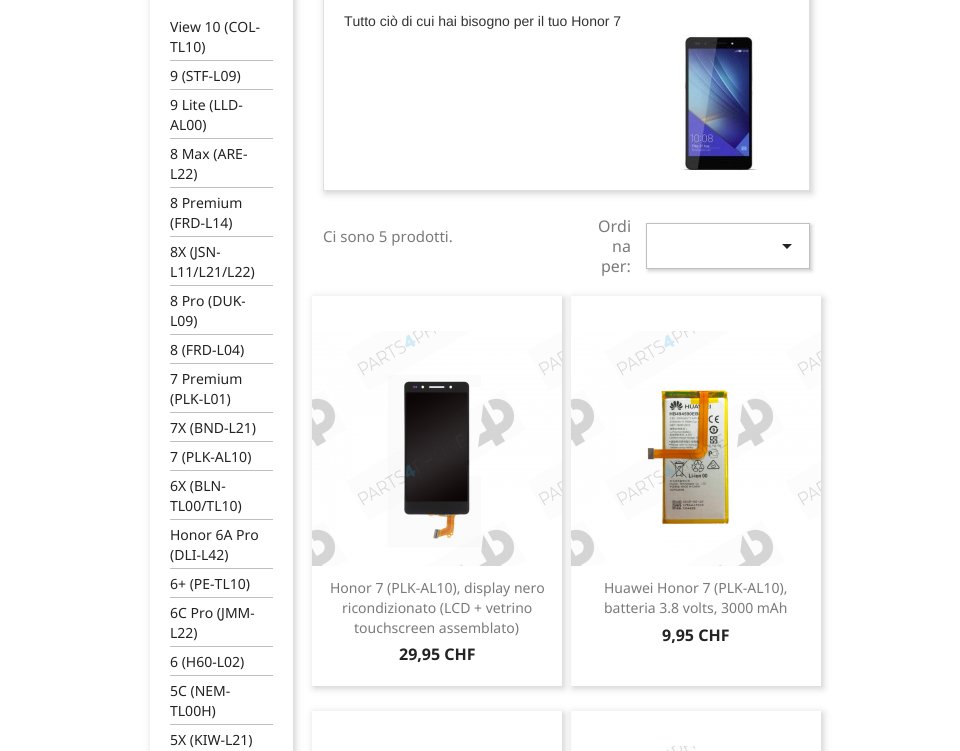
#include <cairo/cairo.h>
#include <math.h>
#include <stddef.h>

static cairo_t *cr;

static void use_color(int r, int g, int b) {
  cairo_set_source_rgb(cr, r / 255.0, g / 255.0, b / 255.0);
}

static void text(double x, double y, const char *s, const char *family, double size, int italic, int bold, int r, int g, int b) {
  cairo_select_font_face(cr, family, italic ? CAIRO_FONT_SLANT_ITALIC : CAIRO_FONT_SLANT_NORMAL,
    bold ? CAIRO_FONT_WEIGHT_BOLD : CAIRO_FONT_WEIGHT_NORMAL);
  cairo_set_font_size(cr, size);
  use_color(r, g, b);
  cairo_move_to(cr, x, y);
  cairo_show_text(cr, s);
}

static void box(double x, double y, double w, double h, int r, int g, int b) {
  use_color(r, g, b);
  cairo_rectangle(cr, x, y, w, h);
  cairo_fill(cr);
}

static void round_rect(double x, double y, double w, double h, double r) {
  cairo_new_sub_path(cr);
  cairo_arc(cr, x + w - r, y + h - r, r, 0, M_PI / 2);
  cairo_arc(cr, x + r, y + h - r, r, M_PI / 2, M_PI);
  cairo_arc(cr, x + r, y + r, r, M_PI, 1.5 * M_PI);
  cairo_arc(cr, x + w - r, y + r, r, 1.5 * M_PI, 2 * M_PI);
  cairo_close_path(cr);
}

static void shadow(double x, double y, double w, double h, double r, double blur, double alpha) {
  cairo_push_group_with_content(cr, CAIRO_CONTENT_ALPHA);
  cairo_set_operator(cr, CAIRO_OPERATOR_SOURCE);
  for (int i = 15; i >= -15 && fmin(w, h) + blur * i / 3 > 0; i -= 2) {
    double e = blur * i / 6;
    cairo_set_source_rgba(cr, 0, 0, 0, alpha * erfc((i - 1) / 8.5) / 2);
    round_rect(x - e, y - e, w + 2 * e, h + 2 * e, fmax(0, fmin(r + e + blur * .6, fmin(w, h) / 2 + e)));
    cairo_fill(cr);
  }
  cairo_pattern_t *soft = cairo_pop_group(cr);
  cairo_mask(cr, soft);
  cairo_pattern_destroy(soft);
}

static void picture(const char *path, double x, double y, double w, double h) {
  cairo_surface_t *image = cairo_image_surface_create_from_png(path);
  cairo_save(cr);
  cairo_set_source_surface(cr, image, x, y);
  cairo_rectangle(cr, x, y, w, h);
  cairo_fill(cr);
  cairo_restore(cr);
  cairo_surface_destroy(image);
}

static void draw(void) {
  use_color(255, 255, 255);
  cairo_paint(cr);
  cairo_save(cr);
  cairo_set_fill_rule(cr, CAIRO_FILL_RULE_EVEN_ODD);
  cairo_new_path(cr);
  cairo_move_to(cr, 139, 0);
  cairo_line_to(cr, 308, 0);
  cairo_line_to(cr, 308, 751);
  cairo_line_to(cr, 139, 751);
  cairo_close_path(cr);
  cairo_move_to(cr, 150, -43);
  cairo_line_to(cr, 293, -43);
  cairo_line_to(cr, 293, 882);
  cairo_line_to(cr, 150, 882);
  cairo_close_path(cr);
  cairo_clip(cr);
  use_color(0, 0, 0);
  shadow(152, -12, 143, 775, 0, 4, 0.2);
  cairo_restore(cr);
  box(170, 60, 103, 1, 191, 191, 191);
  box(170, 89, 103, 1, 191, 191, 191);
  box(170, 138, 103, 1, 191, 191, 191);
  box(170, 187, 103, 1, 191, 191, 191);
  box(170, 236, 103, 1, 191, 191, 191);
  box(170, 285, 103, 1, 191, 191, 191);
  box(170, 334, 103, 1, 191, 191, 191);
  box(170, 363, 103, 1, 191, 191, 191);
  box(170, 412, 103, 1, 191, 191, 191);
  box(170, 441, 103, 1, 191, 191, 191);
  box(170, 470, 103, 1, 191, 191, 191);
  box(170, 519, 103, 1, 191, 191, 191);
  box(170, 568, 103, 1, 191, 191, 191);
  box(170, 597, 103, 1, 191, 191, 191);
  box(170, 646, 103, 1, 191, 191, 191);
  box(170, 675, 103, 1, 191, 191, 191);
  box(170, 724, 103, 1, 191, 191, 191);
  cairo_save(cr);
  cairo_set_fill_rule(cr, CAIRO_FILL_RULE_EVEN_ODD);
  cairo_new_path(cr);
  cairo_move_to(cr, 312, 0);
  cairo_line_to(cr, 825, 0);
  cairo_line_to(cr, 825, 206);
  cairo_line_to(cr, 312, 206);
  cairo_close_path(cr);
  cairo_move_to(cr, 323, -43);
  cairo_line_to(cr, 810, -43);
  cairo_line_to(cr, 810, 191);
  cairo_line_to(cr, 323, 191);
  cairo_close_path(cr);
  cairo_clip(cr);
  use_color(0, 0, 0);
  shadow(325, -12, 487, 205, 0, 4, 0.2);
  cairo_restore(cr);
  cairo_rectangle(cr, 323.5, -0.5, 486, 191);
  use_color(223, 223, 223);
  cairo_set_line_width(cr, 1);
  cairo_stroke(cr);
  picture("img_01.png", 680, 34, 80, 136);
  cairo_save(cr);
  cairo_set_fill_rule(cr, CAIRO_FILL_RULE_EVEN_ODD);
  cairo_new_path(cr);
  cairo_move_to(cr, 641, 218);
  cairo_line_to(cr, 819, 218);
  cairo_line_to(cr, 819, 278);
  cairo_line_to(cr, 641, 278);
  cairo_close_path(cr);
  cairo_move_to(cr, 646, 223);
  cairo_line_to(cr, 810, 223);
  cairo_line_to(cr, 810, 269);
  cairo_line_to(cr, 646, 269);
  cairo_close_path(cr);
  cairo_clip(cr);
  use_color(0, 0, 0);
  shadow(648, 225, 164, 46, 0, 2, 0.2);
  cairo_restore(cr);
  cairo_rectangle(cr, 646.5, 223.5, 163, 45);
  use_color(191, 191, 191);
  cairo_stroke(cr);
  use_color(35, 35, 35);
  cairo_new_path(cr);
  cairo_move_to(cr, 782, 244);
  cairo_line_to(cr, 792, 244);
  cairo_line_to(cr, 787, 249);
  cairo_close_path(cr);
  cairo_fill(cr);
  cairo_save(cr);
  cairo_set_fill_rule(cr, CAIRO_FILL_RULE_EVEN_ODD);
  cairo_new_path(cr);
  cairo_move_to(cr, 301, 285);
  cairo_line_to(cr, 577, 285);
  cairo_line_to(cr, 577, 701);
  cairo_line_to(cr, 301, 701);
  cairo_close_path(cr);
  cairo_move_to(cr, 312, 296);
  cairo_line_to(cr, 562, 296);
  cairo_line_to(cr, 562, 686);
  cairo_line_to(cr, 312, 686);
  cairo_close_path(cr);
  cairo_clip(cr);
  use_color(0, 0, 0);
  shadow(314, 298, 250, 390, 0, 4, 0.2);
  cairo_restore(cr);
  picture("img_02.png", 312, 331, 250, 235);
  cairo_save(cr);
  cairo_set_fill_rule(cr, CAIRO_FILL_RULE_EVEN_ODD);
  cairo_new_path(cr);
  cairo_move_to(cr, 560, 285);
  cairo_line_to(cr, 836, 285);
  cairo_line_to(cr, 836, 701);
  cairo_line_to(cr, 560, 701);
  cairo_close_path(cr);
  cairo_move_to(cr, 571, 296);
  cairo_line_to(cr, 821, 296);
  cairo_line_to(cr, 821, 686);
  cairo_line_to(cr, 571, 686);
  cairo_close_path(cr);
  cairo_clip(cr);
  use_color(0, 0, 0);
  shadow(573, 298, 250, 390, 0, 4, 0.2);
  cairo_restore(cr);
  picture("img_03.png", 571, 331, 250, 235);
  cairo_save(cr);
  cairo_set_fill_rule(cr, CAIRO_FILL_RULE_EVEN_ODD);
  cairo_new_path(cr);
  cairo_move_to(cr, 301, 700);
  cairo_line_to(cr, 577, 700);
  cairo_line_to(cr, 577, 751);
  cairo_line_to(cr, 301, 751);
  cairo_close_path(cr);
  cairo_move_to(cr, 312, 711);
  cairo_line_to(cr, 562, 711);
  cairo_line_to(cr, 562, 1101);
  cairo_line_to(cr, 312, 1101);
  cairo_close_path(cr);
  cairo_clip(cr);
  use_color(0, 0, 0);
  shadow(314, 713, 250, 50, 0, 4, 0.2);
  cairo_restore(cr);
  cairo_save(cr);
  cairo_set_fill_rule(cr, CAIRO_FILL_RULE_EVEN_ODD);
  cairo_new_path(cr);
  cairo_move_to(cr, 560, 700);
  cairo_line_to(cr, 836, 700);
  cairo_line_to(cr, 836, 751);
  cairo_line_to(cr, 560, 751);
  cairo_close_path(cr);
  cairo_move_to(cr, 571, 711);
  cairo_line_to(cr, 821, 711);
  cairo_line_to(cr, 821, 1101);
  cairo_line_to(cr, 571, 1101);
  cairo_close_path(cr);
  cairo_clip(cr);
  use_color(0, 0, 0);
  shadow(573, 713, 250, 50, 0, 4, 0.2);
  cairo_restore(cr);
  picture("img_04.png", 666, 746, 30, 5);
  text(170, 32, "View 10 (COL-", "Noto Sans", 14, 0, 0, 35, 35, 35);
  text(170, 52, "TL10)", "Noto Sans", 14, 0, 0, 35, 35, 35);
  text(170, 81, "9 (STF-L09)", "Noto Sans", 14, 0, 0, 35, 35, 35);
  text(170, 110, "9 Lite (LLD-", "Noto Sans", 14, 0, 0, 35, 35, 35);
  text(170, 130, "AL00)", "Noto Sans", 14, 0, 0, 35, 35, 35);
  text(170, 159, "8 Max (ARE-", "Noto Sans", 14, 0, 0, 35, 35, 35);
  text(170, 179, "L22)", "Noto Sans", 14, 0, 0, 35, 35, 35);
  text(170, 208, "8 Premium", "Noto Sans", 14, 0, 0, 35, 35, 35);
  text(170, 228, "(FRD-L14)", "Noto Sans", 14, 0, 0, 35, 35, 35);
  text(170, 257, "8X (JSN-", "Noto Sans", 14, 0, 0, 35, 35, 35);
  text(170, 277, "L11/L21/L22)", "Noto Sans", 14, 0, 0, 35, 35, 35);
  text(170, 306, "8 Pro (DUK-", "Noto Sans", 14, 0, 0, 35, 35, 35);
  text(170, 326, "L09)", "Noto Sans", 14, 0, 0, 35, 35, 35);
  text(170, 355, "8 (FRD-L04)", "Noto Sans", 14, 0, 0, 35, 35, 35);
  text(170, 384, "7 Premium", "Noto Sans", 14, 0, 0, 35, 35, 35);
  text(170, 404, "(PLK-L01)", "Noto Sans", 14, 0, 0, 35, 35, 35);
  text(170, 433, "7X (BND-L21)", "Noto Sans", 14, 0, 0, 35, 35, 35);
  text(170, 462, "7 (PLK-AL10)", "Noto Sans", 14, 0, 0, 35, 35, 35);
  text(170, 491, "6X (BLN-", "Noto Sans", 14, 0, 0, 35, 35, 35);
  text(170, 511, "TL00/TL10)", "Noto Sans", 14, 0, 0, 35, 35, 35);
  text(170, 540, "Honor 6A Pro", "Noto Sans", 14, 0, 0, 35, 35, 35);
  text(170, 560, "(DLI-L42)", "Noto Sans", 14, 0, 0, 35, 35, 35);
  text(170, 589, "6+ (PE-TL10)", "Noto Sans", 14, 0, 0, 35, 35, 35);
  text(170, 618, "6C Pro (JMM-", "Noto Sans", 14, 0, 0, 35, 35, 35);
  text(170, 638, "L22)", "Noto Sans", 14, 0, 0, 35, 35, 35);
  text(170, 667, "6 (H60-L02)", "Noto Sans", 14, 0, 0, 35, 35, 35);
  text(170, 696, "5C (NEM-", "Noto Sans", 14, 0, 0, 35, 35, 35);
  text(170, 716, "TL00H)", "Noto Sans", 14, 0, 0, 35, 35, 35);
  text(170, 745, "5X (KIW-L21)", "Noto Sans", 14, 0, 0, 35, 35, 35);
  text(344, 26, "Tutto ciò di cui hai bisogno per il tuo Honor 7", "Liberation Sans", 14, 0, 0, 51, 51, 51);
  text(323, 242, "Ci sono 5 prodotti.", "Noto Sans", 15, 0, 0, 122, 122, 122);
  text(598, 232, "Ordi", "Noto Sans", 16, 0, 0, 122, 122, 122);
  text(612, 252, "na", "Noto Sans", 16, 0, 0, 122, 122, 122);
  text(601, 272, "per:", "Noto Sans", 16, 0, 0, 122, 122, 122);
  text(330, 593, "Honor 7 (PLK-AL10), display nero", "Noto Sans", 14, 0, 0, 122, 122, 122);
  text(342, 613, "ricondizionato (LCD + vetrino", "Noto Sans", 14, 0, 0, 122, 122, 122);
  text(354, 633, "touchscreen assemblato)", "Noto Sans", 14, 0, 0, 122, 122, 122);
  text(399, 660, "29,95 CHF", "Noto Sans", 16, 0, 1, 35, 35, 35);
  text(604, 593, "Huawei Honor 7 (PLK-AL10),", "Noto Sans", 14, 0, 0, 122, 122, 122);
  text(604, 613, "batteria 3.8 volts, 3000 mAh", "Noto Sans", 14, 0, 0, 122, 122, 122);
  text(662, 641, "9,95 CHF", "Noto Sans", 16, 0, 1, 35, 35, 35);
}

int main(void) {
  cairo_surface_t *surface = cairo_image_surface_create(CAIRO_FORMAT_RGB24, 960, 751);
  cr = cairo_create(surface);
  cairo_font_options_t *options = cairo_font_options_create();
  cairo_font_options_set_hint_metrics(options, CAIRO_HINT_METRICS_OFF);
  cairo_font_options_set_hint_style(options, CAIRO_HINT_STYLE_NONE);
  cairo_set_font_options(cr, options);
  cairo_set_miter_limit(cr, 4);
  draw();
  cairo_surface_write_to_png(surface, "out.png");
  cairo_font_options_destroy(options);
  cairo_destroy(cr);
  cairo_surface_destroy(surface);
  return 0;
}
